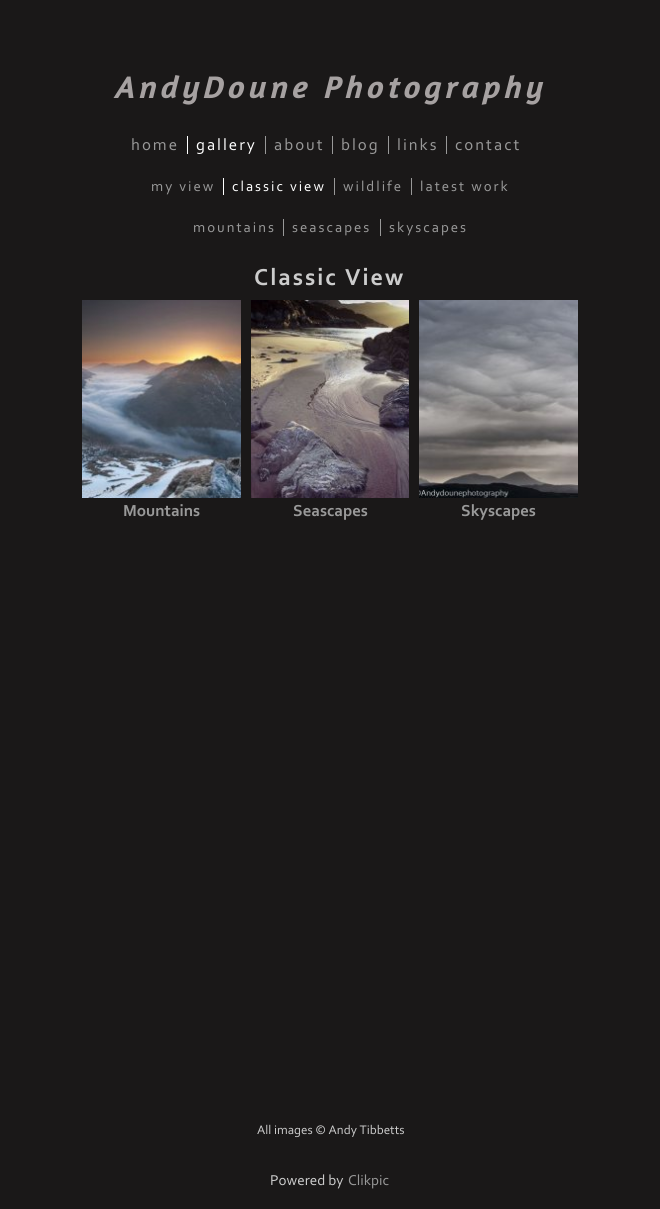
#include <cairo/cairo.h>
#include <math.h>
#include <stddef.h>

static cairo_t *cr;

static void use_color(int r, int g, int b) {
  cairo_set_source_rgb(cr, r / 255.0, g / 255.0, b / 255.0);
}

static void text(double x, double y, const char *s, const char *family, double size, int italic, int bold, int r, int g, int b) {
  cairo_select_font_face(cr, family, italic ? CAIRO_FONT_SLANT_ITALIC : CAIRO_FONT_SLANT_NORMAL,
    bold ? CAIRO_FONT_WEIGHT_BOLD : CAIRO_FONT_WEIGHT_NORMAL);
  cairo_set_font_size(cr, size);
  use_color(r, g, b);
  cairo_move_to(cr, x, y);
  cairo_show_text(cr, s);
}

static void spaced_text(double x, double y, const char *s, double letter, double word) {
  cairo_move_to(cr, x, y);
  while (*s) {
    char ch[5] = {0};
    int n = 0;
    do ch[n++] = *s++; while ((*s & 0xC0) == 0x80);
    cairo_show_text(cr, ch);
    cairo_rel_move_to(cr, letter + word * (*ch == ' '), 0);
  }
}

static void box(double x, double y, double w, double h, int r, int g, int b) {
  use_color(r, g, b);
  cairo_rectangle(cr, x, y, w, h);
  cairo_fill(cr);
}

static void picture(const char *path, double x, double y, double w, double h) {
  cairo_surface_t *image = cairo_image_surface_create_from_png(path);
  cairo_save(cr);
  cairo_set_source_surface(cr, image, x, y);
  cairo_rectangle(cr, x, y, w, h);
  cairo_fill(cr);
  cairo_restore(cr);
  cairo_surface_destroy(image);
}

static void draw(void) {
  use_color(26, 24, 24);
  cairo_paint(cr);
  box(187, 136, 1, 18, 255, 255, 255);
  box(265, 136, 1, 18, 153, 153, 153);
  box(332, 136, 1, 18, 153, 153, 153);
  box(388, 136, 1, 18, 153, 153, 153);
  box(446, 136, 1, 18, 153, 153, 153);
  box(223, 178, 1, 17, 255, 255, 255);
  box(334, 178, 1, 17, 153, 153, 153);
  box(411, 178, 1, 17, 153, 153, 153);
  box(283, 219, 1, 17, 153, 153, 153);
  box(380, 219, 1, 17, 153, 153, 153);
  picture("img_01.png", 82, 300, 159, 198);
  picture("img_02.png", 251, 300, 158, 198);
  picture("img_03.png", 419, 300, 159, 198);
  cairo_select_font_face(cr, "Amaranth", CAIRO_FONT_SLANT_ITALIC, CAIRO_FONT_WEIGHT_BOLD);
  cairo_set_font_size(cr, 30.4);
  use_color(166, 161, 161);
  spaced_text(114, 98, "AndyDoune Photography", 5, 0);
  cairo_select_font_face(cr, "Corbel", CAIRO_FONT_SLANT_NORMAL, CAIRO_FONT_WEIGHT_NORMAL);
  cairo_set_font_size(cr, 16.75);
  use_color(153, 153, 153);
  spaced_text(131, 150, "home", 2, 0);
  use_color(255, 255, 255);
  spaced_text(196, 150, "gallery", 2, 0);
  use_color(153, 153, 153);
  spaced_text(274, 150, "about", 2, 0);
  spaced_text(341, 150, "blog", 2, 0);
  spaced_text(397, 150, "links", 2, 0);
  spaced_text(455, 150, "contact", 2, 0);
  cairo_set_font_size(cr, 14.75);
  spaced_text(151, 191, "my view", 2, 0);
  use_color(255, 255, 255);
  spaced_text(232, 191, "classic view", 2, 0);
  use_color(153, 153, 153);
  spaced_text(343, 191, "wildlife", 2, 0);
  spaced_text(420, 191, "latest work", 2, 0);
  spaced_text(193, 232, "mountains", 2, 0);
  spaced_text(292, 232, "seascapes", 2, 0);
  spaced_text(389, 232, "skyscapes", 2, 0);
  cairo_select_font_face(cr, "Corbel", CAIRO_FONT_SLANT_NORMAL, CAIRO_FONT_WEIGHT_BOLD);
  cairo_set_font_size(cr, 24.25);
  use_color(204, 204, 204);
  spaced_text(254, 285, "Classic View", 2, 0);
  text(123, 516, "Mountains", "Corbel", 16.75, 0, 1, 153, 153, 153);
  text(293, 516, "Seascapes", "Corbel", 16.75, 0, 1, 153, 153, 153);
  text(461, 516, "Skyscapes", "Corbel", 16.75, 0, 1, 153, 153, 153);
  text(257, 1134, "All images © Andy Tibbetts", "Corbel", 13, 0, 0, 204, 204, 204);
  text(270, 1185, "Powered by", "Corbel", 15, 0, 0, 204, 204, 204);
  text(348, 1185, "Clikpic", "Corbel", 15, 0, 0, 153, 153, 153);
}

int main(void) {
  cairo_surface_t *surface = cairo_image_surface_create(CAIRO_FORMAT_RGB24, 660, 1209);
  cr = cairo_create(surface);
  cairo_font_options_t *options = cairo_font_options_create();
  cairo_font_options_set_hint_metrics(options, CAIRO_HINT_METRICS_OFF);
  cairo_font_options_set_hint_style(options, CAIRO_HINT_STYLE_NONE);
  cairo_set_font_options(cr, options);
  cairo_set_miter_limit(cr, 4);
  draw();
  cairo_surface_write_to_png(surface, "out.png");
  cairo_font_options_destroy(options);
  cairo_destroy(cr);
  cairo_surface_destroy(surface);
  return 0;
}
